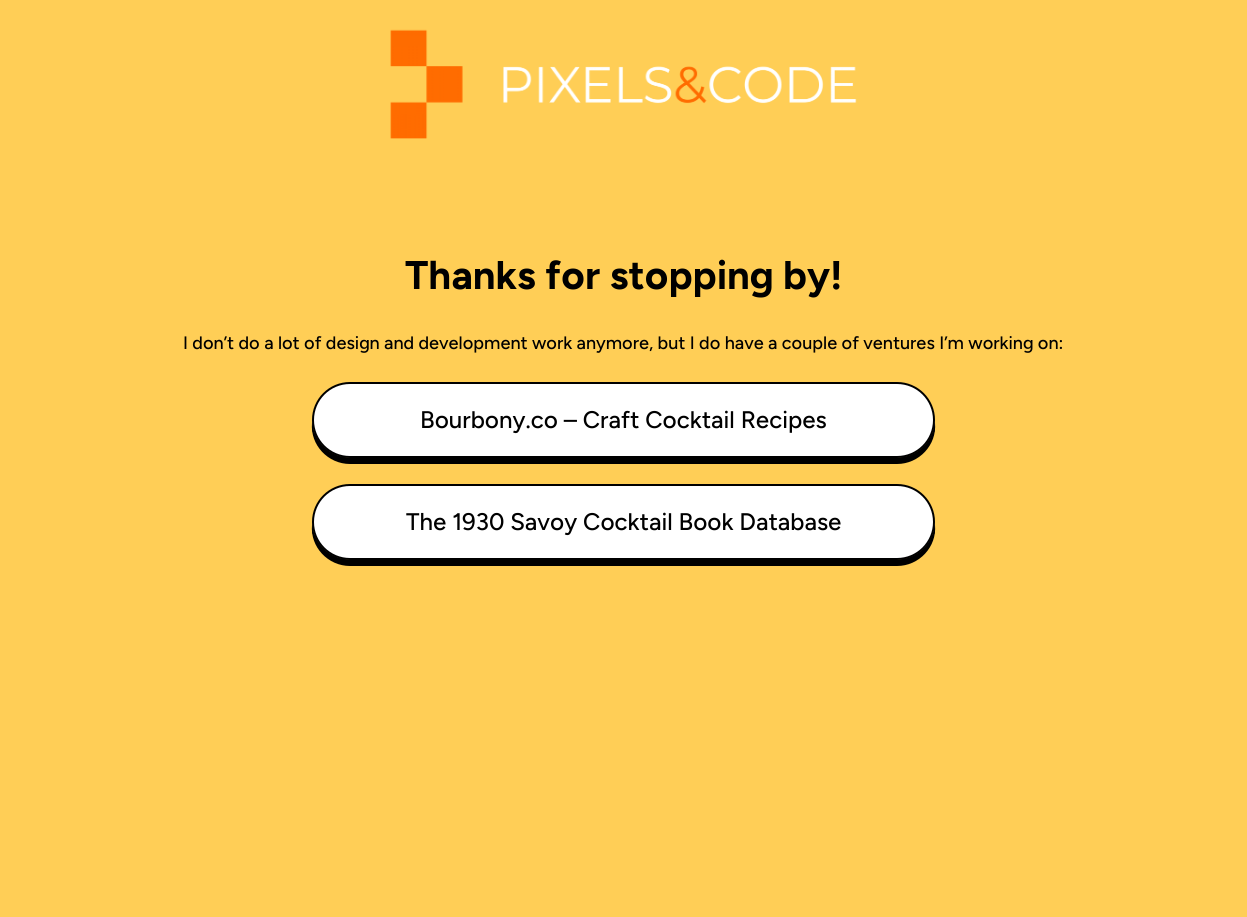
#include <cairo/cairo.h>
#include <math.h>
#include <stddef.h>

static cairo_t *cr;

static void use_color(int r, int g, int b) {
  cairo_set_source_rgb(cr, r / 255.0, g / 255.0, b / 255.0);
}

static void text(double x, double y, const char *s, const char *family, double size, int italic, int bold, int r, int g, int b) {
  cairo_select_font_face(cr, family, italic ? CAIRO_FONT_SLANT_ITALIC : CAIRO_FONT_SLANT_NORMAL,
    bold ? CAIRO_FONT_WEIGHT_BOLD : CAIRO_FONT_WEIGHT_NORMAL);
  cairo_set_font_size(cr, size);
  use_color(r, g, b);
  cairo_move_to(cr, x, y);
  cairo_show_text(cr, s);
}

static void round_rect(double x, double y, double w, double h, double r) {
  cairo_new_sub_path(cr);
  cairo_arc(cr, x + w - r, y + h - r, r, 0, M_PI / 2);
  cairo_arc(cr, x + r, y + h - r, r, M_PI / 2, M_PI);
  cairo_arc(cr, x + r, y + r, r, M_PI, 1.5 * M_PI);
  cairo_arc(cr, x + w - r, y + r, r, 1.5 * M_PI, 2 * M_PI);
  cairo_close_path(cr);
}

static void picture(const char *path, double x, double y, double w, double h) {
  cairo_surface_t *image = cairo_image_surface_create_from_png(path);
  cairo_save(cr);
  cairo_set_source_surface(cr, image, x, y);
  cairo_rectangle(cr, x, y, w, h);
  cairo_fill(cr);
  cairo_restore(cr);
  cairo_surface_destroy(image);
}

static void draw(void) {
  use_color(255, 206, 86);
  cairo_paint(cr);
  picture("img_01.png", 390, 29, 467, 110);
  use_color(0, 0, 0);
  cairo_new_path(cr);
  cairo_move_to(cr, 312, 423);
  cairo_curve_to(cr, 310, 445, 328, 464, 350, 464);
  cairo_line_to(cr, 897, 464);
  cairo_curve_to(cr, 919, 464, 937, 445, 935, 423);
  cairo_curve_to(cr, 933, 443, 917, 458, 897, 458);
  cairo_line_to(cr, 350, 458);
  cairo_curve_to(cr, 330, 458, 314, 443, 312, 423);
  cairo_close_path(cr);
  cairo_fill(cr);
  cairo_new_path(cr);
  cairo_move_to(cr, 312, 422);
  cairo_curve_to(cr, 311, 444, 328, 463, 350, 463);
  cairo_line_to(cr, 897, 463);
  cairo_curve_to(cr, 919, 463, 936, 444, 935, 422);
  cairo_curve_to(cr, 934, 442, 917, 458, 897, 458);
  cairo_line_to(cr, 350, 458);
  cairo_curve_to(cr, 330, 458, 313, 442, 312, 422);
  cairo_close_path(cr);
  cairo_fill(cr);
  cairo_new_path(cr);
  cairo_move_to(cr, 312, 422);
  cairo_curve_to(cr, 311, 444, 329, 462, 350, 462);
  cairo_line_to(cr, 897, 462);
  cairo_curve_to(cr, 918, 462, 936, 444, 935, 422);
  cairo_curve_to(cr, 934, 442, 917, 458, 897, 458);
  cairo_line_to(cr, 350, 458);
  cairo_curve_to(cr, 330, 458, 313, 442, 312, 422);
  cairo_close_path(cr);
  cairo_fill(cr);
  cairo_new_path(cr);
  cairo_move_to(cr, 312, 422);
  cairo_curve_to(cr, 311, 443, 329, 461, 350, 461);
  cairo_line_to(cr, 897, 461);
  cairo_curve_to(cr, 918, 461, 936, 443, 935, 422);
  cairo_curve_to(cr, 934, 442, 917, 458, 897, 458);
  cairo_line_to(cr, 350, 458);
  cairo_curve_to(cr, 330, 458, 313, 442, 312, 422);
  cairo_close_path(cr);
  cairo_fill(cr);
  cairo_new_path(cr);
  cairo_move_to(cr, 312, 421);
  cairo_curve_to(cr, 311, 442, 329, 460, 350, 460);
  cairo_line_to(cr, 897, 460);
  cairo_curve_to(cr, 918, 460, 936, 442, 935, 421);
  cairo_curve_to(cr, 934, 442, 918, 458, 897, 458);
  cairo_line_to(cr, 350, 458);
  cairo_curve_to(cr, 329, 458, 313, 442, 312, 421);
  cairo_close_path(cr);
  cairo_fill(cr);
  cairo_new_path(cr);
  cairo_move_to(cr, 312, 420);
  cairo_curve_to(cr, 312, 442, 329, 459, 350, 459);
  cairo_line_to(cr, 897, 459);
  cairo_curve_to(cr, 918, 459, 935, 442, 935, 420);
  cairo_curve_to(cr, 935, 441, 918, 458, 897, 458);
  cairo_line_to(cr, 350, 458);
  cairo_curve_to(cr, 329, 458, 312, 441, 312, 420);
  cairo_close_path(cr);
  cairo_fill(cr);
  use_color(255, 255, 255);
  round_rect(313, 383, 621, 74, 37);
  cairo_fill_preserve(cr);
  use_color(0, 0, 0);
  cairo_stroke(cr);
  cairo_new_path(cr);
  cairo_move_to(cr, 312, 525);
  cairo_curve_to(cr, 310, 547, 328, 566, 350, 566);
  cairo_line_to(cr, 897, 566);
  cairo_curve_to(cr, 919, 566, 937, 547, 935, 525);
  cairo_curve_to(cr, 933, 545, 917, 560, 897, 560);
  cairo_line_to(cr, 350, 560);
  cairo_curve_to(cr, 330, 560, 314, 545, 312, 525);
  cairo_close_path(cr);
  cairo_fill(cr);
  cairo_new_path(cr);
  cairo_move_to(cr, 312, 524);
  cairo_curve_to(cr, 311, 546, 328, 565, 350, 565);
  cairo_line_to(cr, 897, 565);
  cairo_curve_to(cr, 919, 565, 936, 546, 935, 524);
  cairo_curve_to(cr, 934, 544, 917, 560, 897, 560);
  cairo_line_to(cr, 350, 560);
  cairo_curve_to(cr, 330, 560, 313, 544, 312, 524);
  cairo_close_path(cr);
  cairo_fill(cr);
  cairo_new_path(cr);
  cairo_move_to(cr, 312, 524);
  cairo_curve_to(cr, 311, 546, 329, 564, 350, 564);
  cairo_line_to(cr, 897, 564);
  cairo_curve_to(cr, 918, 564, 936, 546, 935, 524);
  cairo_curve_to(cr, 934, 544, 917, 560, 897, 560);
  cairo_line_to(cr, 350, 560);
  cairo_curve_to(cr, 330, 560, 313, 544, 312, 524);
  cairo_close_path(cr);
  cairo_fill(cr);
  cairo_new_path(cr);
  cairo_move_to(cr, 312, 524);
  cairo_curve_to(cr, 311, 545, 329, 563, 350, 563);
  cairo_line_to(cr, 897, 563);
  cairo_curve_to(cr, 918, 563, 936, 545, 935, 524);
  cairo_curve_to(cr, 934, 544, 917, 560, 897, 560);
  cairo_line_to(cr, 350, 560);
  cairo_curve_to(cr, 330, 560, 313, 544, 312, 524);
  cairo_close_path(cr);
  cairo_fill(cr);
  cairo_new_path(cr);
  cairo_move_to(cr, 312, 523);
  cairo_curve_to(cr, 311, 544, 329, 562, 350, 562);
  cairo_line_to(cr, 897, 562);
  cairo_curve_to(cr, 918, 562, 936, 544, 935, 523);
  cairo_curve_to(cr, 934, 544, 918, 560, 897, 560);
  cairo_line_to(cr, 350, 560);
  cairo_curve_to(cr, 329, 560, 313, 544, 312, 523);
  cairo_close_path(cr);
  cairo_fill(cr);
  cairo_new_path(cr);
  cairo_move_to(cr, 312, 522);
  cairo_curve_to(cr, 312, 544, 329, 561, 350, 561);
  cairo_line_to(cr, 897, 561);
  cairo_curve_to(cr, 918, 561, 935, 544, 935, 522);
  cairo_curve_to(cr, 935, 543, 918, 560, 897, 560);
  cairo_line_to(cr, 350, 560);
  cairo_curve_to(cr, 329, 560, 312, 543, 312, 522);
  cairo_close_path(cr);
  cairo_fill(cr);
  use_color(255, 255, 255);
  round_rect(313, 485, 621, 74, 37);
  cairo_fill_preserve(cr);
  use_color(0, 0, 0);
  cairo_stroke(cr);
  text(405, 289, "Thanks for stopping by!", "Figtree", 40, 0, 1, 0, 0, 0);
  text(183, 349, "I don’t do a lot of design and development work anymore, but I do have a couple of ventures I’m working on:", "Figtree Medium", 18, 0, 0, 0, 0, 0);
  text(420, 428, "Bourbony.co – Craft Cocktail Recipes", "Figtree Medium", 24, 0, 0, 0, 0, 0);
  text(406, 530, "The 1930 Savoy Cocktail Book Database", "Figtree Medium", 24, 0, 0, 0, 0, 0);
}

int main(void) {
  cairo_surface_t *surface = cairo_image_surface_create(CAIRO_FORMAT_RGB24, 1247, 917);
  cr = cairo_create(surface);
  cairo_font_options_t *options = cairo_font_options_create();
  cairo_font_options_set_hint_metrics(options, CAIRO_HINT_METRICS_OFF);
  cairo_font_options_set_hint_style(options, CAIRO_HINT_STYLE_NONE);
  cairo_set_font_options(cr, options);
  cairo_set_miter_limit(cr, 4);
  draw();
  cairo_surface_write_to_png(surface, "out.png");
  cairo_font_options_destroy(options);
  cairo_destroy(cr);
  cairo_surface_destroy(surface);
  return 0;
}
